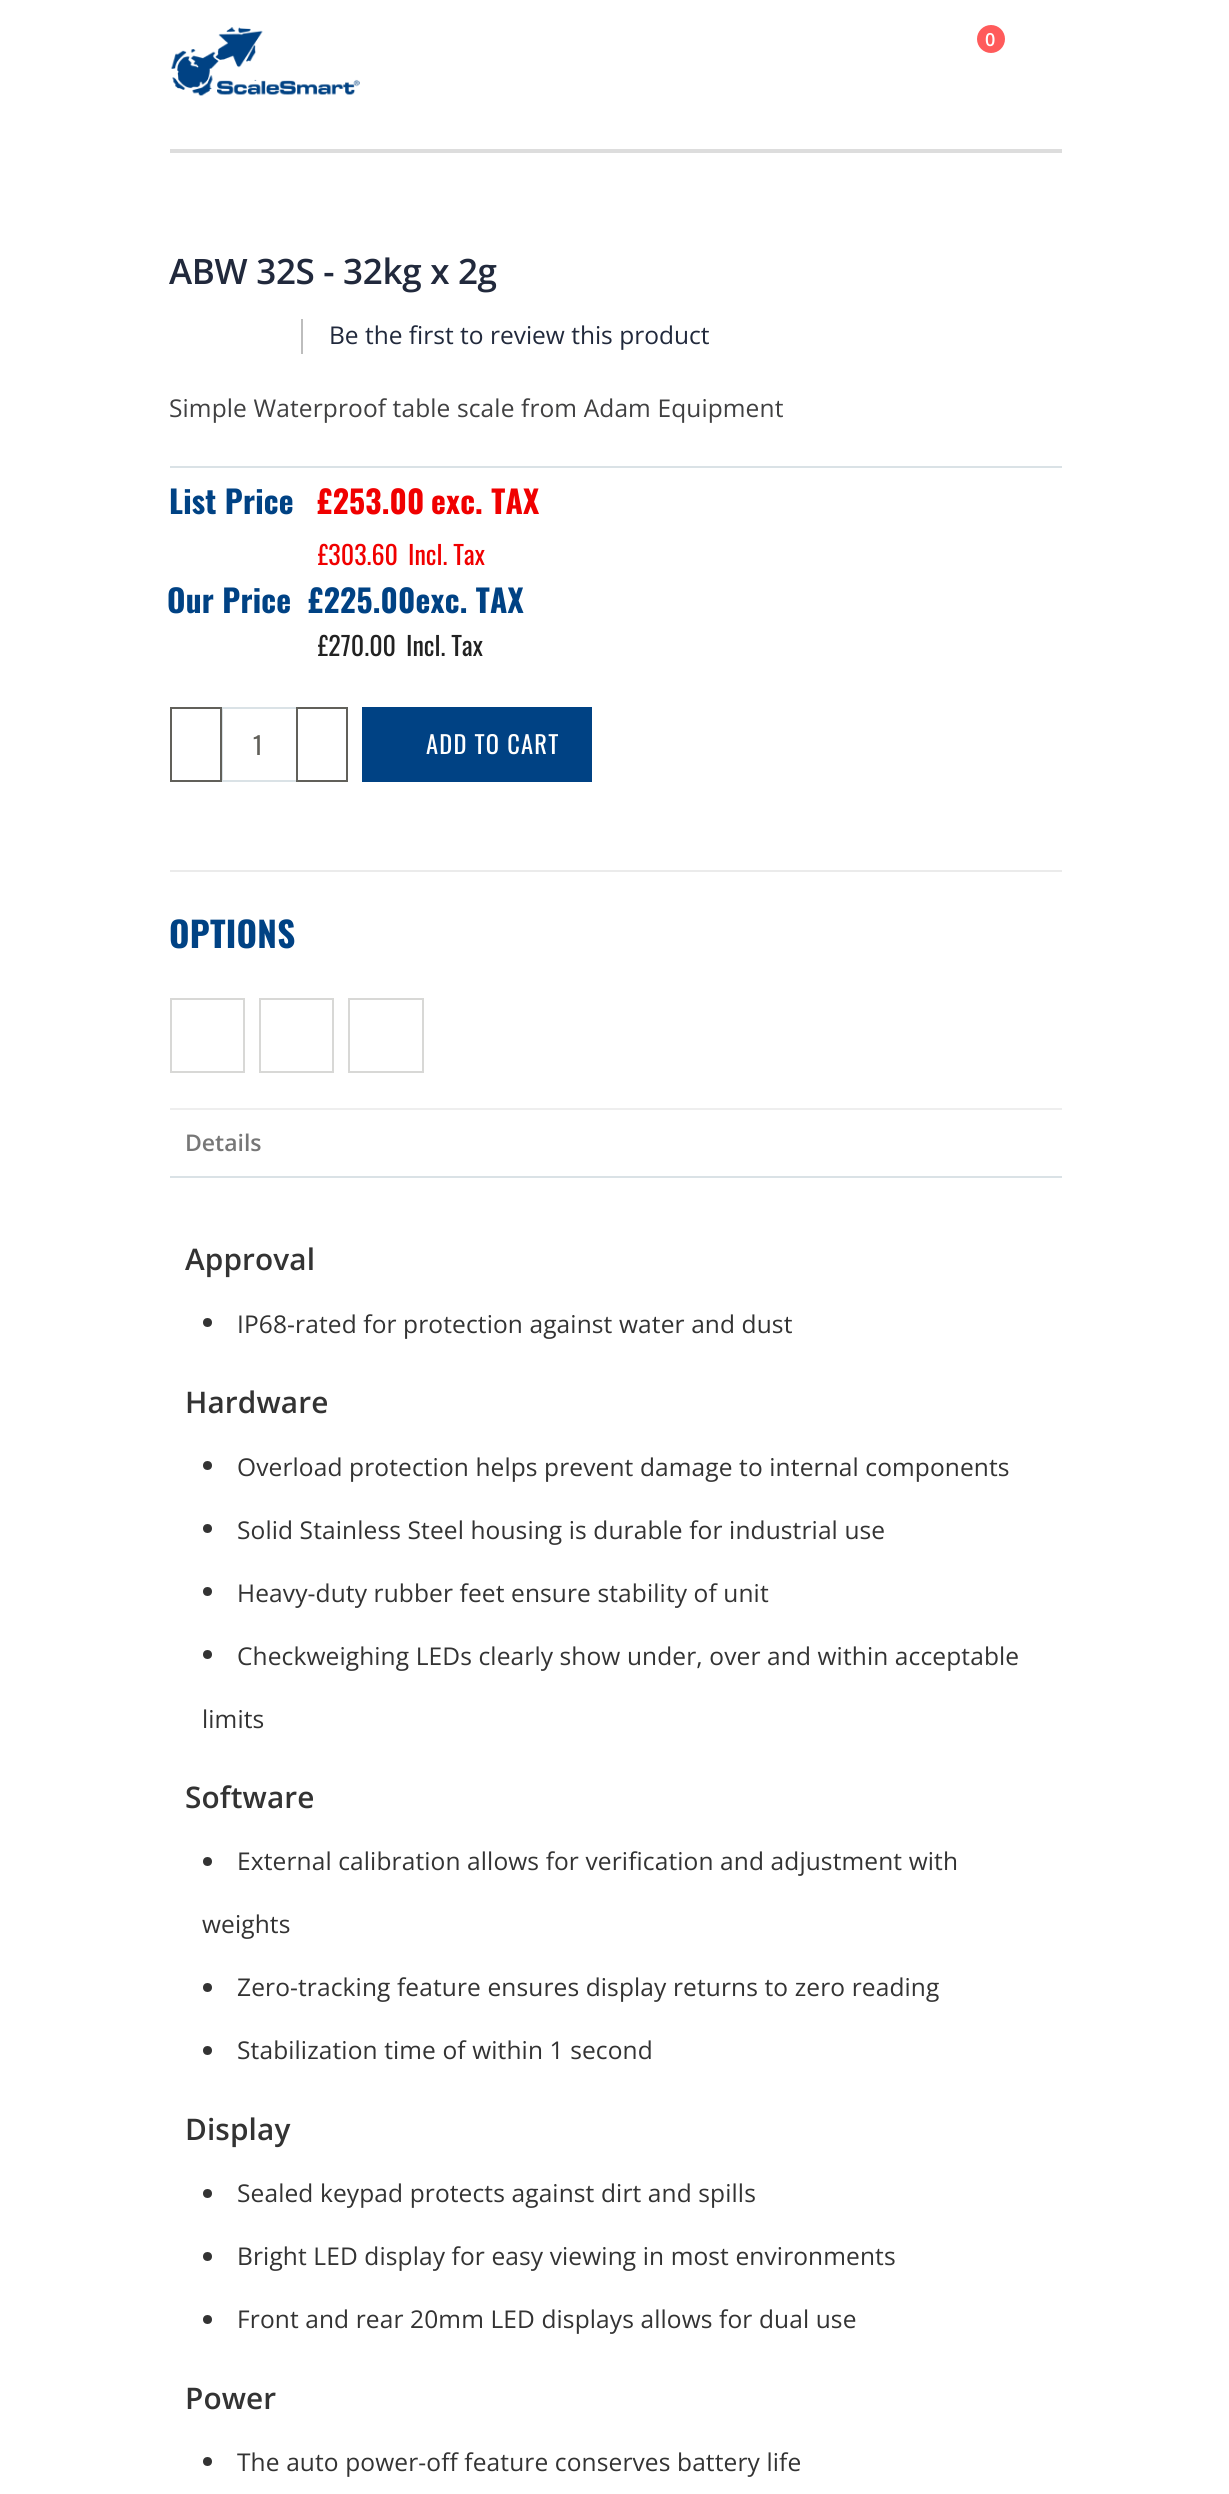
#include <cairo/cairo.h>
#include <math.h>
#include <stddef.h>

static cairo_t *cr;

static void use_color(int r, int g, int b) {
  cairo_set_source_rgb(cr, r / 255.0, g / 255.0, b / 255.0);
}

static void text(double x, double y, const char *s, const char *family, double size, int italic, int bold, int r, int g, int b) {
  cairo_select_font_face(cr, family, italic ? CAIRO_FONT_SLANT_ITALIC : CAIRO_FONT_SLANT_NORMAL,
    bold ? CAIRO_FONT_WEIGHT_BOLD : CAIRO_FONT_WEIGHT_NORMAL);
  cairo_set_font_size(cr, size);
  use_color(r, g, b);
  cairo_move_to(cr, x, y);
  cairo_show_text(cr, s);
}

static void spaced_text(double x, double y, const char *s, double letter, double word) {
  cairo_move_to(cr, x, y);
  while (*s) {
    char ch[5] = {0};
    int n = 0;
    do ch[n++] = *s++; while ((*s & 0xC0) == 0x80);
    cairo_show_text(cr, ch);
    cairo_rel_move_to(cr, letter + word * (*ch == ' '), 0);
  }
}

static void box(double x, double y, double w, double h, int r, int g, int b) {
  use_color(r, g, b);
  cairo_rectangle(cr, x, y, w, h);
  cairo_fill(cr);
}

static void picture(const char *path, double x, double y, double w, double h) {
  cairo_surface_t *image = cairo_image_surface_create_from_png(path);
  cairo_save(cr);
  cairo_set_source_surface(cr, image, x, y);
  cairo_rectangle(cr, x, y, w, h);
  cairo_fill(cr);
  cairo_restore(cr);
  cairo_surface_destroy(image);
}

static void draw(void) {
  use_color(255, 255, 255);
  cairo_paint(cr);
  picture("img_01.png", 171, 27, 189, 69);
  use_color(255, 91, 91);
  cairo_arc(cr, 991, 39, 14, 0, 2 * M_PI);
  cairo_fill(cr);
  box(170, 149, 892, 4, 221, 221, 221);
  box(301, 319, 2, 35, 189, 189, 189);
  box(170, 466, 892, 2, 218, 226, 230);
  cairo_rectangle(cr, 222, 708, 75, 73);
  cairo_stroke(cr);
  cairo_rectangle(cr, 171, 708, 50, 73);
  use_color(97, 96, 90);
  cairo_stroke(cr);
  cairo_rectangle(cr, 297, 708, 50, 73);
  cairo_stroke(cr);
  box(362, 707, 230, 75, 0, 66, 132);
  box(170, 870, 892, 2, 235, 235, 235);
  cairo_rectangle(cr, 171, 999, 73, 73);
  use_color(216, 216, 214);
  cairo_stroke(cr);
  cairo_rectangle(cr, 260, 999, 73, 73);
  cairo_stroke(cr);
  cairo_rectangle(cr, 349, 999, 74, 73);
  cairo_stroke(cr);
  box(170, 1108, 892, 2, 238, 238, 238);
  box(170, 1176, 892, 2, 218, 226, 230);
  use_color(51, 51, 51);
  cairo_arc(cr, 207.5, 1322.5, 4.5, 0, 2 * M_PI);
  cairo_fill(cr);
  cairo_arc(cr, 207.5, 1465.5, 4.5, 0, 2 * M_PI);
  cairo_fill(cr);
  cairo_arc(cr, 207.5, 1528.5, 4.5, 0, 2 * M_PI);
  cairo_fill(cr);
  cairo_arc(cr, 207.5, 1591.5, 4.5, 0, 2 * M_PI);
  cairo_fill(cr);
  cairo_arc(cr, 207.5, 1654.5, 4.5, 0, 2 * M_PI);
  cairo_fill(cr);
  cairo_arc(cr, 207.5, 1861.5, 4.5, 0, 2 * M_PI);
  cairo_fill(cr);
  cairo_arc(cr, 207.5, 1987.5, 4.5, 0, 2 * M_PI);
  cairo_fill(cr);
  cairo_arc(cr, 207.5, 2050.5, 4.5, 0, 2 * M_PI);
  cairo_fill(cr);
  cairo_arc(cr, 207.5, 2193.5, 4.5, 0, 2 * M_PI);
  cairo_fill(cr);
  cairo_arc(cr, 207.5, 2256.5, 4.5, 0, 2 * M_PI);
  cairo_fill(cr);
  cairo_arc(cr, 207.5, 2319.5, 4.5, 0, 2 * M_PI);
  cairo_fill(cr);
  cairo_arc(cr, 207.5, 2461.5, 4.5, 0, 2 * M_PI);
  cairo_fill(cr);
  text(985, 46, "0", "Open Sans SemiBold", 18, 0, 0, 255, 255, 255);
  cairo_set_font_size(cr, 35);
  use_color(33, 41, 60);
  spaced_text(169, 284, "ABW 32S - 32kg x 2g", -0.3, 0);
  text(329, 344, "Be the first to review this product", "Open Sans", 24.5, 0, 0, 33, 41, 60);
  use_color(64, 64, 65);
  spaced_text(169, 417, "Simple Waterproof table scale from Adam Equipment", 0.12, 0);
  cairo_select_font_face(cr, "Oswald", CAIRO_FONT_SLANT_NORMAL, CAIRO_FONT_WEIGHT_BOLD);
  cairo_set_font_size(cr, 31.5);
  use_color(0, 66, 132);
  spaced_text(169, 514, "List Price", 0.2, 0);
  use_color(240, 0, 0);
  spaced_text(317, 514, "£253.00", 0.2, 0);
  spaced_text(431, 514, "exc. TAX", 0.2, 0);
  text(318, 565, "£303.60", "Oswald", 26, 0, 0, 240, 0, 0);
  text(408, 565, "Incl. Tax", "Oswald", 26, 0, 0, 240, 0, 0);
  cairo_select_font_face(cr, "Oswald", CAIRO_FONT_SLANT_NORMAL, CAIRO_FONT_WEIGHT_BOLD);
  cairo_set_font_size(cr, 31.5);
  use_color(0, 66, 132);
  spaced_text(167, 613, "Our Price", 0.2, 0);
  spaced_text(308, 613, "£225.00exc. TAX", 0.2, 0);
  text(318, 656, "£270.00", "Oswald", 26, 0, 0, 34, 34, 34);
  text(406, 656, "Incl. Tax", "Oswald", 26, 0, 0, 34, 34, 34);
  text(253, 755, "1", "Oswald", 24.5, 0, 0, 97, 96, 90);
  use_color(255, 255, 255);
  spaced_text(426, 754, "ADD TO CART", 1.25, 0);
  cairo_select_font_face(cr, "Oswald", CAIRO_FONT_SLANT_NORMAL, CAIRO_FONT_WEIGHT_BOLD);
  cairo_set_font_size(cr, 35);
  use_color(0, 66, 132);
  spaced_text(169, 948, "OPTIONS", 0.25, 0);
  text(185, 1151, "Details", "Open Sans SemiBold", 23, 0, 0, 119, 119, 119);
  cairo_set_font_size(cr, 29.75);
  use_color(51, 51, 51);
  spaced_text(185, 1270, "Approval", 0.12, 0);
  cairo_select_font_face(cr, "Open Sans", CAIRO_FONT_SLANT_NORMAL, CAIRO_FONT_WEIGHT_NORMAL);
  cairo_set_font_size(cr, 24.5);
  spaced_text(237, 1333, "IP68-rated for protection against water and dust", 0.12, 0);
  cairo_select_font_face(cr, "Open Sans SemiBold", CAIRO_FONT_SLANT_NORMAL, CAIRO_FONT_WEIGHT_NORMAL);
  cairo_set_font_size(cr, 29.75);
  spaced_text(185, 1413, "Hardware", 0.12, 0);
  cairo_select_font_face(cr, "Open Sans", CAIRO_FONT_SLANT_NORMAL, CAIRO_FONT_WEIGHT_NORMAL);
  cairo_set_font_size(cr, 24.5);
  spaced_text(237, 1476, "Overload protection helps prevent damage to internal components", 0.12, 0);
  spaced_text(237, 1539, "Solid Stainless Steel housing is durable for industrial use", 0.12, 0);
  spaced_text(237, 1602, "Heavy-duty rubber feet ensure stability of unit", 0.12, 0);
  spaced_text(237, 1665, "Checkweighing LEDs clearly show under, over and within acceptable", 0.12, 0);
  spaced_text(202, 1728, "limits", 0.12, 0);
  cairo_select_font_face(cr, "Open Sans SemiBold", CAIRO_FONT_SLANT_NORMAL, CAIRO_FONT_WEIGHT_NORMAL);
  cairo_set_font_size(cr, 29.75);
  spaced_text(185, 1808, "Software", 0.12, 0);
  cairo_select_font_face(cr, "Open Sans", CAIRO_FONT_SLANT_NORMAL, CAIRO_FONT_WEIGHT_NORMAL);
  cairo_set_font_size(cr, 24.5);
  spaced_text(237, 1870, "External calibration allows for verification and adjustment with", 0.12, 0);
  spaced_text(202, 1933, "weights", 0.12, 0);
  spaced_text(237, 1996, "Zero-tracking feature ensures display returns to zero reading", 0.12, 0);
  spaced_text(237, 2059, "Stabilization time of within 1 second", 0.12, 0);
  cairo_select_font_face(cr, "Open Sans SemiBold", CAIRO_FONT_SLANT_NORMAL, CAIRO_FONT_WEIGHT_NORMAL);
  cairo_set_font_size(cr, 29.75);
  spaced_text(185, 2140, "Display", 0.12, 0);
  cairo_select_font_face(cr, "Open Sans", CAIRO_FONT_SLANT_NORMAL, CAIRO_FONT_WEIGHT_NORMAL);
  cairo_set_font_size(cr, 24.5);
  spaced_text(237, 2202, "Sealed keypad protects against dirt and spills", 0.12, 0);
  spaced_text(237, 2265, "Bright LED display for easy viewing in most environments", 0.12, 0);
  spaced_text(237, 2328, "Front and rear 20mm LED displays allows for dual use", 0.12, 0);
  cairo_select_font_face(cr, "Open Sans SemiBold", CAIRO_FONT_SLANT_NORMAL, CAIRO_FONT_WEIGHT_NORMAL);
  cairo_set_font_size(cr, 29.75);
  spaced_text(185, 2409, "Power", 0.12, 0);
  cairo_select_font_face(cr, "Open Sans", CAIRO_FONT_SLANT_NORMAL, CAIRO_FONT_WEIGHT_NORMAL);
  cairo_set_font_size(cr, 24.5);
  spaced_text(237, 2471, "The auto power-off feature conserves battery life", 0.12, 0);
}

int main(void) {
  cairo_surface_t *surface = cairo_image_surface_create(CAIRO_FORMAT_RGB24, 1229, 2494);
  cr = cairo_create(surface);
  cairo_font_options_t *options = cairo_font_options_create();
  cairo_font_options_set_hint_metrics(options, CAIRO_HINT_METRICS_OFF);
  cairo_font_options_set_hint_style(options, CAIRO_HINT_STYLE_NONE);
  cairo_set_font_options(cr, options);
  cairo_set_miter_limit(cr, 4);
  draw();
  cairo_surface_write_to_png(surface, "out.png");
  cairo_font_options_destroy(options);
  cairo_destroy(cr);
  cairo_surface_destroy(surface);
  return 0;
}
